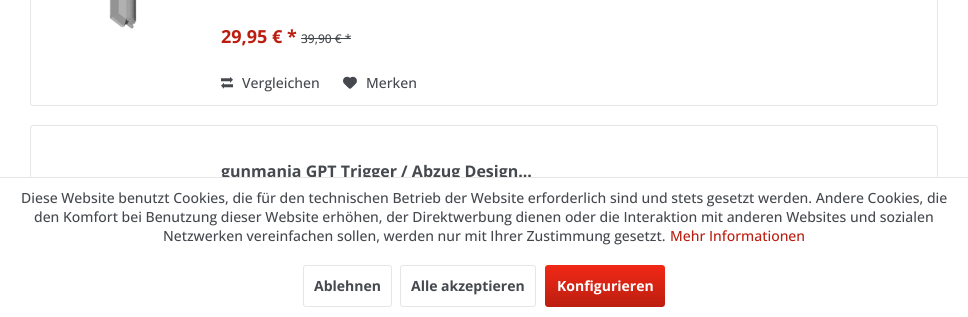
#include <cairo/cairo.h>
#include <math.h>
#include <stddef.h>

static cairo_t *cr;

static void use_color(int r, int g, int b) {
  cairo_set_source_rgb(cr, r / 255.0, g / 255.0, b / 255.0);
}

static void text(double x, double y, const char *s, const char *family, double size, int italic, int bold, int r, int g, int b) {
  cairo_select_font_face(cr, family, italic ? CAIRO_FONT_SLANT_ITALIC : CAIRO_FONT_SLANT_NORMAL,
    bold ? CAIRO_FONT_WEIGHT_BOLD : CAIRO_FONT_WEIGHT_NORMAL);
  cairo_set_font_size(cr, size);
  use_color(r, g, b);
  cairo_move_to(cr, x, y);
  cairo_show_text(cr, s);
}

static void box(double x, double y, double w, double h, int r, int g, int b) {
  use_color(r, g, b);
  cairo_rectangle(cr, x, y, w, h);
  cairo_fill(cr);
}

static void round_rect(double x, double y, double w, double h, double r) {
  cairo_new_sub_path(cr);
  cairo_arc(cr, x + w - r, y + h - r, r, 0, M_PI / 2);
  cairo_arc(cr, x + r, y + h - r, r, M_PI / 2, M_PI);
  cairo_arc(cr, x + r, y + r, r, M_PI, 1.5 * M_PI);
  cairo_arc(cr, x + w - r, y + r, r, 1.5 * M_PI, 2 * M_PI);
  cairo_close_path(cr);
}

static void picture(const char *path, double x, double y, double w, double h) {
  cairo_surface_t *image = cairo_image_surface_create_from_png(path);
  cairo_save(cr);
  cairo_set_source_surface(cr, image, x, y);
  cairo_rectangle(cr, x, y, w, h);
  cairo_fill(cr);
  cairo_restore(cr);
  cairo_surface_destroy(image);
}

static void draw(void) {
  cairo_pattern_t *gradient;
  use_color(255, 255, 255);
  cairo_paint(cr);
  round_rect(30.5, -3.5, 907, 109, 2.5);
  use_color(230, 230, 230);
  cairo_set_line_width(cr, 1);
  cairo_stroke(cr);
  picture("img_01.png", 109, 0, 28, 29);
  box(301, 38, 50, 1, 69, 73, 78);
  picture("img_02.png", 221, 76, 12, 13);
  picture("img_03.png", 343, 76, 14, 13);
  round_rect(30.5, 125.5, 907, 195, 2.5);
  use_color(230, 230, 230);
  cairo_stroke(cr);
  text(221, 43, "29,95 € *", "Open Sans", 18, 0, 1, 187, 30, 16);
  text(301, 43, "39,90 € *", "Open Sans Medium", 12, 0, 0, 69, 73, 78);
  text(242, 88, "Vergleichen", "Open Sans Medium", 14, 0, 0, 69, 73, 78);
  text(366, 88, "Merken", "Open Sans Medium", 14, 0, 0, 69, 73, 78);
  text(221, 177, "gunmania GPT Trigger / Abzug Design...", "Open Sans", 16, 0, 1, 69, 73, 78);
  box(30, 178, 908, 139, 255, 255, 255);
  box(0, 177, 968, 1, 230, 230, 230);
  text(21, 203, "Diese Website benutzt Cookies, die für den technischen Betrieb der Website erforderlich sind und stets gesetzt werden. Andere Cookies, die", "Open Sans Medium", 14, 0, 0, 69, 73, 78);
  text(34, 222, "den Komfort bei Benutzung dieser Website erhöhen, der Direktwerbung dienen oder die Interaktion mit anderen Websites und sozialen", "Open Sans Medium", 14, 0, 0, 69, 73, 78);
  text(163, 241, "Netzwerken vereinfachen sollen, werden nur mit Ihrer Zustimmung gesetzt.", "Open Sans Medium", 14, 0, 0, 69, 73, 78);
  text(670, 241, "Mehr Informationen", "Open Sans Medium", 14, 0, 0, 187, 30, 16);
  round_rect(303.5, 265.5, 88, 41, 2.5);
  use_color(230, 230, 230);
  cairo_stroke(cr);
  text(314, 291, "Ablehnen", "Open Sans", 14, 0, 1, 69, 73, 78);
  round_rect(400.5, 265.5, 135, 41, 2.5);
  use_color(230, 230, 230);
  cairo_stroke(cr);
  text(411, 291, "Alle akzeptieren", "Open Sans", 14, 0, 1, 69, 73, 78);
  gradient = cairo_pattern_create_linear(605, 265, 605, 307);
  cairo_pattern_add_color_stop_rgba(gradient, 0, 0.949, 0.157, 0.086, 1);
  cairo_pattern_add_color_stop_rgba(gradient, 1, 0.733, 0.118, 0.063, 1);
  cairo_set_source(cr, gradient);
  cairo_pattern_destroy(gradient);
  round_rect(545, 265, 120, 42, 3);
  cairo_fill(cr);
  text(557, 291, "Konfigurieren", "Open Sans", 14, 0, 1, 255, 255, 255);
}

int main(void) {
  cairo_surface_t *surface = cairo_image_surface_create(CAIRO_FORMAT_RGB24, 968, 317);
  cr = cairo_create(surface);
  cairo_font_options_t *options = cairo_font_options_create();
  cairo_font_options_set_hint_metrics(options, CAIRO_HINT_METRICS_OFF);
  cairo_font_options_set_hint_style(options, CAIRO_HINT_STYLE_NONE);
  cairo_set_font_options(cr, options);
  cairo_set_miter_limit(cr, 4);
  draw();
  cairo_surface_write_to_png(surface, "out.png");
  cairo_font_options_destroy(options);
  cairo_destroy(cr);
  cairo_surface_destroy(surface);
  return 0;
}
